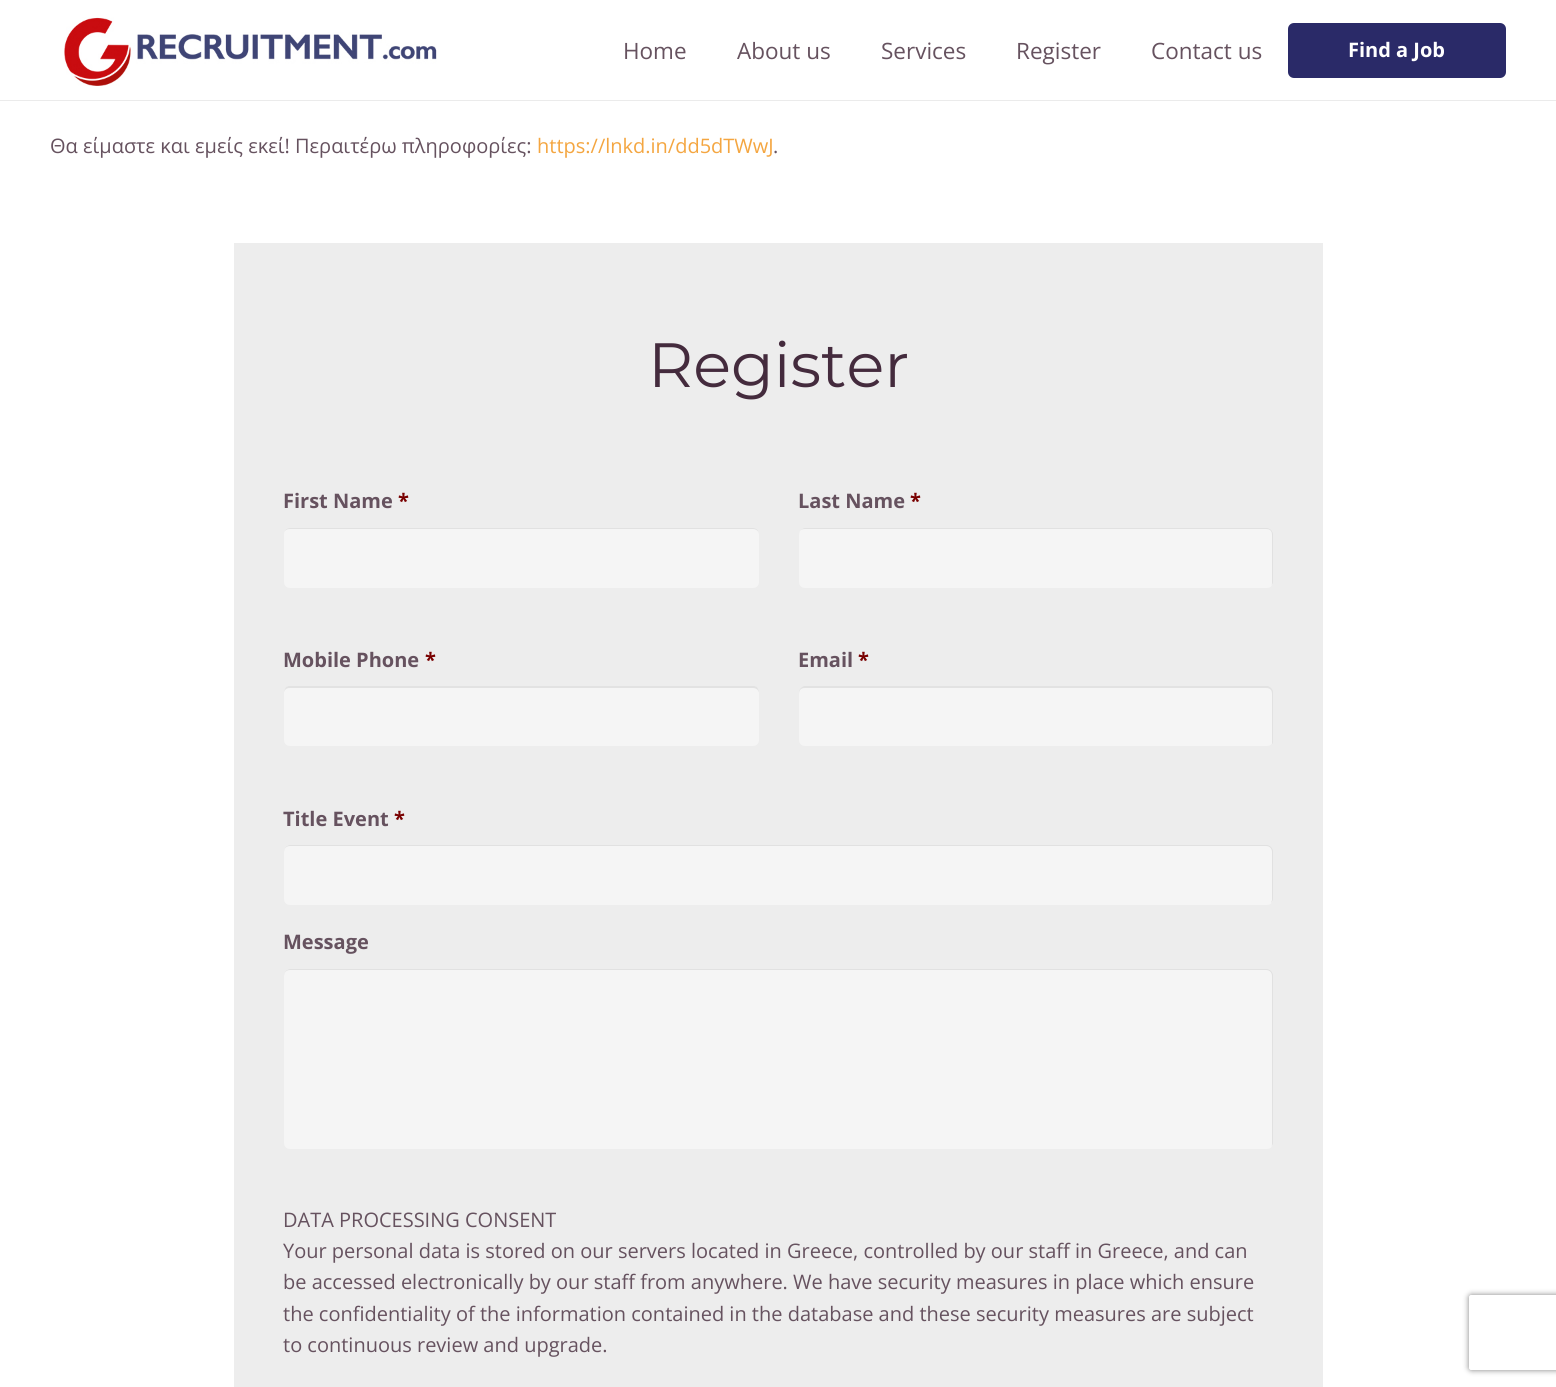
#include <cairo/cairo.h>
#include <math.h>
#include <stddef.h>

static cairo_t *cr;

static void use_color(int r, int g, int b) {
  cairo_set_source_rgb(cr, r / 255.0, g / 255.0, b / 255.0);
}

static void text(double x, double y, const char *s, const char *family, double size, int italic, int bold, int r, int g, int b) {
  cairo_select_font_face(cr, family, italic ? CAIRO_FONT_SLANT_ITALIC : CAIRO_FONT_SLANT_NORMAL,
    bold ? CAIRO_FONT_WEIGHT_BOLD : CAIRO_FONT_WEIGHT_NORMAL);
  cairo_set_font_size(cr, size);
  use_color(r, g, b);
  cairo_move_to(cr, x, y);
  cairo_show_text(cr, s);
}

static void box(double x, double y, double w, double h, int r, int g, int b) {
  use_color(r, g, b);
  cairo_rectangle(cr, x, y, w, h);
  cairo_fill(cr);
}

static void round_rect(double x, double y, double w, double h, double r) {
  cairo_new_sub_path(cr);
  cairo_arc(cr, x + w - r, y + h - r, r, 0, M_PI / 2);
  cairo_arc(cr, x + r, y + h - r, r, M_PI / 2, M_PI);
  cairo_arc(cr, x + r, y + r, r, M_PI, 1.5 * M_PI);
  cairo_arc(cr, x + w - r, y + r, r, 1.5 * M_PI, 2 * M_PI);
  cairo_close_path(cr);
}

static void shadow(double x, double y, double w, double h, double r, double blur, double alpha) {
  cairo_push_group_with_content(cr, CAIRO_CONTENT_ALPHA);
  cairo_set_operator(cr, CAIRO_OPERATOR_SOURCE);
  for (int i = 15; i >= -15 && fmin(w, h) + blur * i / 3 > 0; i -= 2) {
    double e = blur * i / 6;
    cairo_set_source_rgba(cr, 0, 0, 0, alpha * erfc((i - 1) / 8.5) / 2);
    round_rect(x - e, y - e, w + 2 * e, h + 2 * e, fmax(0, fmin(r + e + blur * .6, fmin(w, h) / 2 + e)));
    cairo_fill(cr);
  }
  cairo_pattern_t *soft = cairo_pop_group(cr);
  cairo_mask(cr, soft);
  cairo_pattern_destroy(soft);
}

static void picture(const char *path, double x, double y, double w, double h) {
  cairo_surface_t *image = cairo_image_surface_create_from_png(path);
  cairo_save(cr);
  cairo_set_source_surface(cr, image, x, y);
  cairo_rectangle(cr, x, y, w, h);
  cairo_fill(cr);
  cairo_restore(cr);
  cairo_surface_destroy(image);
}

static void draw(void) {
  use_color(255, 255, 255);
  cairo_paint(cr);
  box(0, 100, 1556, 1, 235, 235, 235);
  picture("img_01.png", 64, 17, 373, 69);
  use_color(42, 42, 104);
  round_rect(1288, 23, 218, 55, 6);
  cairo_fill(cr);
  box(234, 243, 1089, 1144, 237, 237, 237);
  use_color(245, 245, 245);
  round_rect(284, 528, 475, 60, 6);
  cairo_fill(cr);
  use_color(225, 225, 225);
  cairo_new_path(cr);
  cairo_move_to(cr, 290, 529);
  cairo_line_to(cr, 753, 529);
  cairo_curve_to(cr, 756, 529, 759, 531, 759, 535);
  cairo_curve_to(cr, 759, 531, 757, 528, 753, 528);
  cairo_line_to(cr, 290, 528);
  cairo_curve_to(cr, 286, 528, 284, 531, 284, 535);
  cairo_curve_to(cr, 284, 531, 286, 529, 290, 529);
  cairo_close_path(cr);
  cairo_fill(cr);
  use_color(245, 245, 245);
  round_rect(799, 528, 474, 60, 6);
  cairo_fill(cr);
  use_color(225, 225, 225);
  cairo_new_path(cr);
  cairo_move_to(cr, 805, 529);
  cairo_line_to(cr, 1266, 529);
  cairo_curve_to(cr, 1270, 529, 1272, 531, 1272, 535);
  cairo_line_to(cr, 1272, 583);
  cairo_curve_to(cr, 1272, 584, 1272, 585, 1271, 586);
  cairo_curve_to(cr, 1272, 585, 1273, 584, 1273, 582);
  cairo_line_to(cr, 1273, 534);
  cairo_curve_to(cr, 1273, 531, 1270, 528, 1267, 528);
  cairo_line_to(cr, 805, 528);
  cairo_curve_to(cr, 802, 528, 799, 531, 799, 534);
  cairo_line_to(cr, 799, 535);
  cairo_curve_to(cr, 799, 531, 801, 529, 805, 529);
  cairo_close_path(cr);
  cairo_fill(cr);
  use_color(245, 245, 245);
  round_rect(284, 686, 475, 60, 6);
  cairo_fill(cr);
  cairo_set_source_rgba(cr, 0, 0, 0, 0.08);
  cairo_new_path(cr);
  cairo_move_to(cr, 290, 688);
  cairo_line_to(cr, 753, 688);
  cairo_curve_to(cr, 756, 688, 759, 690, 759, 694);
  cairo_curve_to(cr, 759, 690, 758, 686, 753, 686);
  cairo_line_to(cr, 290, 686);
  cairo_curve_to(cr, 285, 686, 284, 690, 284, 694);
  cairo_curve_to(cr, 284, 690, 286, 688, 290, 688);
  cairo_close_path(cr);
  cairo_fill(cr);
  use_color(245, 245, 245);
  round_rect(799, 686, 474, 60, 6);
  cairo_fill(cr);
  cairo_set_source_rgba(cr, 0, 0, 0, 0.08);
  cairo_new_path(cr);
  cairo_move_to(cr, 805, 688);
  cairo_line_to(cr, 1266, 688);
  cairo_curve_to(cr, 1270, 688, 1272, 690, 1272, 694);
  cairo_line_to(cr, 1272, 744);
  cairo_curve_to(cr, 1273, 743, 1273, 741, 1273, 740);
  cairo_line_to(cr, 1273, 692);
  cairo_curve_to(cr, 1273, 689, 1270, 686, 1267, 686);
  cairo_line_to(cr, 805, 686);
  cairo_curve_to(cr, 802, 686, 799, 689, 799, 692);
  cairo_line_to(cr, 799, 694);
  cairo_curve_to(cr, 799, 690, 801, 688, 805, 688);
  cairo_close_path(cr);
  cairo_fill(cr);
  use_color(245, 245, 245);
  round_rect(284, 845, 989, 60, 6);
  cairo_fill(cr);
  use_color(225, 225, 225);
  cairo_new_path(cr);
  cairo_move_to(cr, 290, 846);
  cairo_line_to(cr, 1266, 846);
  cairo_curve_to(cr, 1270, 846, 1272, 849, 1272, 852);
  cairo_line_to(cr, 1272, 900);
  cairo_line_to(cr, 1271, 903);
  cairo_curve_to(cr, 1272, 902, 1273, 901, 1273, 899);
  cairo_line_to(cr, 1273, 851);
  cairo_curve_to(cr, 1273, 848, 1270, 845, 1267, 845);
  cairo_line_to(cr, 290, 845);
  cairo_curve_to(cr, 287, 845, 284, 848, 284, 851);
  cairo_line_to(cr, 284, 852);
  cairo_curve_to(cr, 284, 849, 286, 846, 290, 846);
  cairo_close_path(cr);
  cairo_fill(cr);
  use_color(245, 245, 245);
  round_rect(284, 969, 989, 180, 6);
  cairo_fill(cr);
  use_color(225, 225, 225);
  cairo_new_path(cr);
  cairo_move_to(cr, 290, 970);
  cairo_line_to(cr, 1266, 970);
  cairo_curve_to(cr, 1270, 970, 1272, 973, 1272, 976);
  cairo_line_to(cr, 1272, 1144);
  cairo_curve_to(cr, 1272, 1145, 1272, 1146, 1271, 1147);
  cairo_curve_to(cr, 1272, 1146, 1273, 1145, 1273, 1143);
  cairo_line_to(cr, 1273, 975);
  cairo_curve_to(cr, 1273, 972, 1270, 969, 1267, 969);
  cairo_line_to(cr, 290, 969);
  cairo_curve_to(cr, 287, 969, 284, 972, 284, 975);
  cairo_line_to(cr, 284, 976);
  cairo_curve_to(cr, 284, 973, 286, 970, 290, 970);
  cairo_close_path(cr);
  cairo_fill(cr);
  cairo_save(cr);
  cairo_set_fill_rule(cr, CAIRO_FILL_RULE_EVEN_ODD);
  cairo_new_path(cr);
  cairo_move_to(cr, 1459, 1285);
  cairo_line_to(cr, 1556, 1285);
  cairo_line_to(cr, 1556, 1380);
  cairo_line_to(cr, 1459, 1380);
  cairo_close_path(cr);
  cairo_move_to(cr, 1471.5, 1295);
  cairo_line_to(cr, 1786.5, 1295);
  cairo_curve_to(cr, 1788, 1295, 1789, 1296, 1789, 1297.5);
  cairo_line_to(cr, 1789, 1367.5);
  cairo_curve_to(cr, 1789, 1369, 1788, 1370, 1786.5, 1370);
  cairo_line_to(cr, 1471.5, 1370);
  cairo_curve_to(cr, 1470, 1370, 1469, 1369, 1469, 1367.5);
  cairo_line_to(cr, 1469, 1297.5);
  cairo_curve_to(cr, 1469, 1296, 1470, 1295, 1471.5, 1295);
  cairo_close_path(cr);
  cairo_clip(cr);
  use_color(128, 128, 128);
  shadow(1469, 1295, 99, 75, 2.5, 3, 1);
  cairo_restore(cr);
  text(623, 59, "Home", "Open Sans", 22.5, 0, 0, 102, 82, 95);
  text(737, 59, "About us", "Open Sans", 22.5, 0, 0, 102, 82, 95);
  text(881, 59, "Services", "Open Sans", 22.5, 0, 0, 102, 82, 95);
  text(1016, 59, "Register", "Open Sans", 22.5, 0, 0, 102, 82, 95);
  text(1151, 59, "Contact us", "Open Sans", 22.5, 0, 0, 102, 82, 95);
  text(1348, 57, "Find a Job", "Open Sans", 20, 0, 1, 255, 255, 255);
  text(50, 153, "Θα είμαστε και εμείς εκεί! Περαιτέρω πληροφορίες:", "Open Sans", 20, 0, 0, 102, 82, 95);
  text(537, 153, "https://lnkd.in/dd5dTWwJ", "Open Sans", 20, 0, 0, 244, 166, 65);
  text(773, 153, ".", "Open Sans", 20, 0, 0, 102, 82, 95);
  text(648, 387, "Register", "Montserrat", 62.5, 0, 0, 68, 43, 61);
  text(283, 508, "First Name", "Open Sans", 20, 0, 1, 102, 82, 95);
  text(398, 508, "*", "Open Sans", 20, 0, 1, 121, 0, 0);
  text(798, 508, "Last Name", "Open Sans", 20, 0, 1, 102, 82, 95);
  text(910, 508, "*", "Open Sans", 20, 0, 1, 121, 0, 0);
  text(283, 667, "Mobile Phone", "Open Sans", 20, 0, 1, 102, 82, 95);
  text(425, 667, "*", "Open Sans", 20, 0, 1, 121, 0, 0);
  text(798, 667, "Email", "Open Sans", 20, 0, 1, 102, 82, 95);
  text(858, 667, "*", "Open Sans", 20, 0, 1, 121, 0, 0);
  text(283, 826, "Title Event", "Open Sans", 20, 0, 1, 102, 82, 95);
  text(394, 826, "*", "Open Sans", 20, 0, 1, 121, 0, 0);
  text(283, 949, "Message", "Open Sans", 20, 0, 1, 102, 82, 95);
  text(283, 1227, "DATA PROCESSING CONSENT", "Open Sans", 20, 0, 0, 102, 82, 95);
  text(283, 1258, "Your personal data is stored on our servers located in Greece, controlled by our staff in Greece, and can", "Open Sans", 20, 0, 0, 102, 82, 95);
  text(283, 1289, "be accessed electronically by our staff from anywhere. We have security measures in place which ensure", "Open Sans", 20, 0, 0, 102, 82, 95);
  text(283, 1321, "the confidentiality of the information contained in the database and these security measures are subject", "Open Sans", 20, 0, 0, 102, 82, 95);
  text(283, 1352, "to continuous review and upgrade.", "Open Sans", 20, 0, 0, 102, 82, 95);
}

int main(void) {
  cairo_surface_t *surface = cairo_image_surface_create(CAIRO_FORMAT_RGB24, 1556, 1387);
  cr = cairo_create(surface);
  cairo_font_options_t *options = cairo_font_options_create();
  cairo_font_options_set_hint_metrics(options, CAIRO_HINT_METRICS_OFF);
  cairo_font_options_set_hint_style(options, CAIRO_HINT_STYLE_NONE);
  cairo_set_font_options(cr, options);
  cairo_set_miter_limit(cr, 4);
  draw();
  cairo_surface_write_to_png(surface, "out.png");
  cairo_font_options_destroy(options);
  cairo_destroy(cr);
  cairo_surface_destroy(surface);
  return 0;
}
